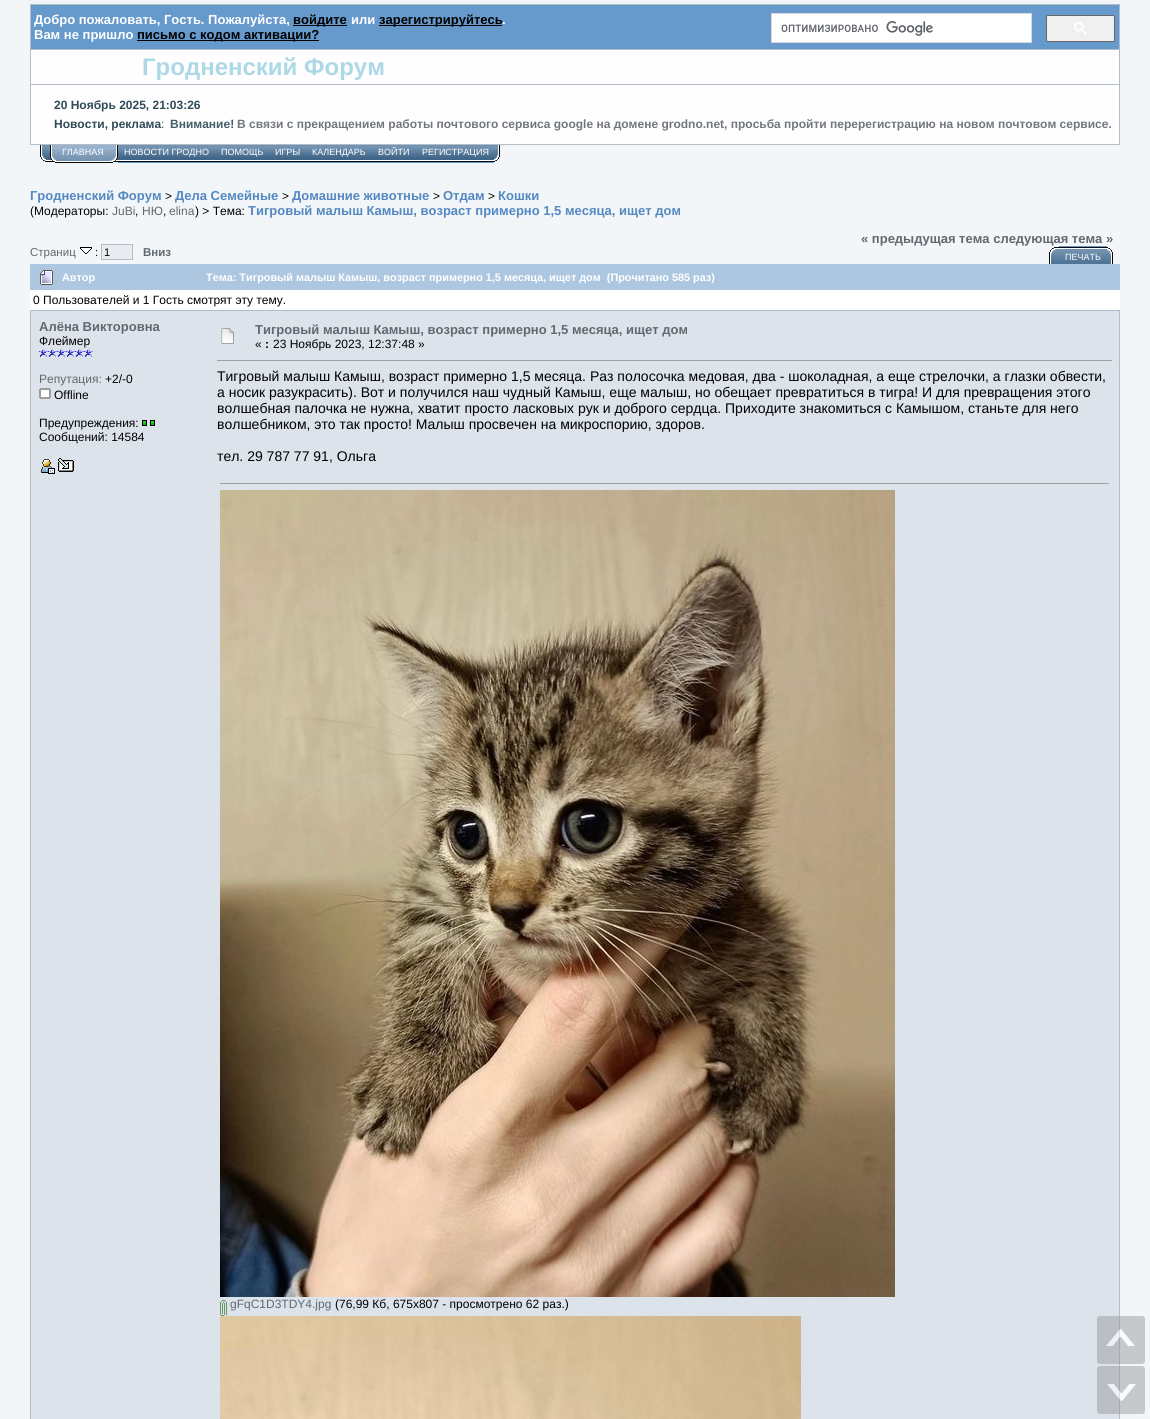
#include <cairo/cairo.h>
#include <math.h>
#include <stddef.h>

static cairo_t *cr;

static void use_color(int r, int g, int b) {
  cairo_set_source_rgb(cr, r / 255.0, g / 255.0, b / 255.0);
}

static void text(double x, double y, const char *s, const char *family, double size, int italic, int bold, int r, int g, int b) {
  cairo_select_font_face(cr, family, italic ? CAIRO_FONT_SLANT_ITALIC : CAIRO_FONT_SLANT_NORMAL,
    bold ? CAIRO_FONT_WEIGHT_BOLD : CAIRO_FONT_WEIGHT_NORMAL);
  cairo_set_font_size(cr, size);
  use_color(r, g, b);
  cairo_move_to(cr, x, y);
  cairo_show_text(cr, s);
}

static void box(double x, double y, double w, double h, int r, int g, int b) {
  use_color(r, g, b);
  cairo_rectangle(cr, x, y, w, h);
  cairo_fill(cr);
}

static void round_rect(double x, double y, double w, double h, double r) {
  cairo_new_sub_path(cr);
  cairo_arc(cr, x + w - r, y + h - r, r, 0, M_PI / 2);
  cairo_arc(cr, x + r, y + h - r, r, M_PI / 2, M_PI);
  cairo_arc(cr, x + r, y + r, r, M_PI, 1.5 * M_PI);
  cairo_arc(cr, x + w - r, y + r, r, 1.5 * M_PI, 2 * M_PI);
  cairo_close_path(cr);
}

static void picture(const char *path, double x, double y, double w, double h) {
  cairo_surface_t *image = cairo_image_surface_create_from_png(path);
  cairo_save(cr);
  cairo_set_source_surface(cr, image, x, y);
  cairo_rectangle(cr, x, y, w, h);
  cairo_fill(cr);
  cairo_restore(cr);
  cairo_surface_destroy(image);
}

static void draw(void) {
  use_color(242, 246, 249);
  cairo_paint(cr);
  box(30, 4, 1090, 141, 177, 189, 201);
  box(31, 5, 1088, 44, 102, 153, 204);
  box(293, 25, 54, 1, 0, 0, 0);
  box(379, 25, 123, 1, 0, 0, 0);
  box(137, 40, 182, 1, 0, 0, 0);
  use_color(255, 255, 255);
  cairo_rectangle(cr, 771.5, 13.5, 260, 29);
  cairo_fill_preserve(cr);
  use_color(217, 217, 217);
  cairo_set_line_width(cr, 1);
  cairo_stroke(cr);
  picture("img_01.png", 781, 21, 152, 15);
  use_color(240, 240, 240);
  round_rect(1046.5, 15.5, 68, 26, 1.5);
  cairo_fill_preserve(cr);
  use_color(102, 102, 102);
  cairo_stroke(cr);
  picture("img_02.png", 1074, 22, 13, 13);
  box(31, 50, 1088, 34, 254, 254, 254);
  box(31, 85, 1088, 59, 254, 254, 254);
  picture("img_03.png", 40, 145, 10, 17);
  picture("img_04.png", 50, 145, 6, 18);
  picture("img_05.png", 56, 145, 54, 18);
  picture("img_06.png", 110, 145, 8, 18);
  box(118, 162, 376, 1, 102, 153, 204);
  picture("img_07.png", 118, 145, 97, 17);
  picture("img_08.png", 215, 145, 54, 17);
  picture("img_09.png", 269, 145, 37, 17);
  picture("img_10.png", 306, 145, 66, 17);
  picture("img_11.png", 372, 145, 44, 17);
  picture("img_12.png", 416, 145, 78, 17);
  picture("img_13.png", 494, 145, 6, 17);
  picture("img_14.png", 80, 247, 12, 7);
  use_color(232, 235, 239);
  cairo_rectangle(cr, 101.5, 244.5, 31, 15);
  cairo_fill_preserve(cr);
  use_color(177, 189, 201);
  cairo_stroke(cr);
  picture("img_15.png", 1049, 247, 10, 17);
  box(1059, 246, 48, 1, 102, 153, 204);
  picture("img_16.png", 1059, 247, 48, 17);
  picture("img_17.png", 1107, 247, 6, 17);
  box(30, 290, 1090, 20, 255, 255, 255);
  box(30, 264, 1090, 26, 173, 199, 225);
  picture("img_18.png", 40, 270, 13, 15);
  box(30, 310, 1090, 1109, 177, 189, 201);
  box(31, 311, 1088, 1108, 221, 227, 235);
  picture("img_19.png", 39, 348, 9, 9);
  picture("img_19.png", 48, 348, 9, 9);
  picture("img_19.png", 57, 348, 9, 9);
  picture("img_19.png", 66, 348, 9, 9);
  picture("img_19.png", 75, 348, 9, 9);
  picture("img_19.png", 84, 348, 9, 9);
  picture("img_20.png", 39, 388, 12, 11);
  picture("img_21.png", 142, 420, 13, 6);
  picture("img_22.png", 41, 459, 14, 15);
  picture("img_23.png", 58, 458, 16, 14);
  picture("img_24.png", 221, 328, 13, 16);
  box(217, 360, 896, 1, 159, 159, 159);
  box(1112, 360, 1, 1, 238, 238, 238);
  box(220, 483, 890, 1, 159, 159, 159);
  box(1109, 483, 1, 1, 238, 238, 238);
  picture("img_25.png", 220, 490, 675, 807);
  picture("img_26.png", 220, 1300, 7, 16);
  picture("img_27.png", 220, 1316, 581, 103);
  picture("img_28.png", 1097, 1316, 48, 48);
  picture("img_29.png", 1097, 1366, 48, 48);
  text(34, 24, "Добро пожаловать, Гость. Пожалуйста,", "Liberation Sans", 13, 0, 1, 255, 255, 255);
  text(293, 24, "войдите", "Liberation Sans", 13, 0, 1, 0, 0, 0);
  text(351, 24, "или", "Liberation Sans", 13, 0, 1, 255, 255, 255);
  text(379, 24, "зарегистрируйтесь", "Liberation Sans", 13, 0, 1, 0, 0, 0);
  text(502, 24, ".", "Liberation Sans", 13, 0, 1, 255, 255, 255);
  text(34, 39, "Вам не пришло", "Liberation Sans", 13, 0, 1, 255, 255, 255);
  text(137, 39, "письмо с кодом активации?", "Liberation Sans", 13, 0, 1, 0, 0, 0);
  text(142, 75, "Гродненский Форум", "Liberation Sans", 24, 0, 1, 173, 216, 230);
  text(54, 109, "20 Ноябрь 2025, 21:03:26", "Liberation Sans", 12, 0, 1, 48, 75, 88);
  text(54, 128, "Новости, реклама", "Liberation Sans", 12, 0, 1, 48, 75, 88);
  text(161, 128, ":", "Liberation Sans", 12, 0, 0, 48, 75, 88);
  text(170, 128, "Внимание!", "Liberation Sans", 12, 0, 1, 69, 93, 105);
  text(237, 128, "В связи с прекращением работы почтового сервиса google на домене grodno.net, просьба пройти перерегистрацию на новом почтовом сервисе.", "Liberation Sans", 12, 0, 1, 114, 119, 125);
  text(62, 155, "ГЛАВНАЯ", "Liberation Sans", 9, 0, 0, 255, 255, 255);
  text(124, 155, "НОВОСТИ ГРОДНО", "Liberation Sans", 9, 0, 0, 255, 255, 255);
  text(221, 155, "ПОМОЩЬ", "Liberation Sans", 9, 0, 0, 255, 255, 255);
  text(275, 155, "ИГРЫ", "Liberation Sans", 9, 0, 0, 255, 255, 255);
  text(312, 155, "КАЛЕНДАРЬ", "Liberation Sans", 9, 0, 0, 255, 255, 255);
  text(378, 155, "ВОЙТИ", "Liberation Sans", 9, 0, 0, 255, 255, 255);
  text(422, 155, "РЕГИСТРАЦИЯ", "Liberation Sans", 9, 0, 0, 255, 255, 255);
  text(30, 200, "Гродненский Форум", "Liberation Sans", 13, 0, 1, 84, 136, 193);
  text(165, 200, ">", "Liberation Sans", 12, 0, 0, 0, 0, 0);
  text(175, 200, "Дела Семейные", "Liberation Sans", 13, 0, 1, 84, 136, 193);
  text(282, 200, ">", "Liberation Sans", 12, 0, 0, 0, 0, 0);
  text(292, 200, "Домашние животные", "Liberation Sans", 13, 0, 1, 84, 136, 193);
  text(433, 200, ">", "Liberation Sans", 12, 0, 0, 0, 0, 0);
  text(443, 200, "Отдам", "Liberation Sans", 13, 0, 1, 84, 136, 193);
  text(488, 200, ">", "Liberation Sans", 12, 0, 0, 0, 0, 0);
  text(498, 200, "Кошки", "Liberation Sans", 13, 0, 1, 84, 136, 193);
  text(30, 215, "(Модераторы:", "Liberation Sans", 12, 0, 0, 0, 0, 0);
  text(112, 215, "JuBi", "Liberation Sans", 12, 0, 0, 98, 104, 111);
  text(135, 215, ",", "Liberation Sans", 12, 0, 0, 0, 0, 0);
  text(142, 215, "НЮ", "Liberation Sans", 12, 0, 0, 98, 104, 111);
  text(163, 215, ",", "Liberation Sans", 12, 0, 0, 0, 0, 0);
  text(169, 215, "elina", "Liberation Sans", 12, 0, 0, 98, 104, 111);
  text(195, 215, ") > Тема:", "Liberation Sans", 12, 0, 0, 0, 0, 0);
  text(248, 215, "Тигровый малыш Камыш, возраст примерно 1,5 месяца, ищет дом", "Liberation Sans", 13, 0, 1, 84, 136, 193);
  text(30, 256, "Страниц", "Liberation Sans", 11.5, 0, 0, 98, 104, 111);
  text(95, 256, ":", "Liberation Sans", 11.5, 0, 0, 0, 0, 0);
  text(104, 256, "1", "Liberation Sans", 11, 0, 0, 0, 0, 0);
  text(143, 256, "Вниз", "Liberation Sans", 11.5, 0, 1, 98, 104, 111);
  text(861, 243, "« предыдущая тема следующая тема »", "Liberation Sans", 13, 0, 1, 98, 104, 111);
  text(1065, 260, "ПЕЧАТЬ", "Liberation Sans", 9, 0, 0, 255, 255, 255);
  text(62, 281, "Автор", "Liberation Sans", 10.85, 0, 1, 255, 255, 255);
  text(206, 281, "Тема: Тигровый малыш Камыш, возраст примерно 1,5 месяца, ищет дом  (Прочитано 585 раз)", "Liberation Sans", 10.85, 0, 1, 255, 255, 255);
  text(33, 304, "0 Пользователей и 1 Гость смотрят эту тему.", "Liberation Sans", 12, 0, 0, 0, 0, 0);
  text(39, 331, "Алёна Викторовна", "Liberation Sans", 13, 0, 1, 98, 104, 111);
  text(39, 345, "Флеймер", "Liberation Sans", 12, 0, 0, 0, 0, 0);
  text(39, 383, "Репутация:", "Liberation Sans", 12, 0, 0, 98, 104, 111);
  text(105, 383, "+2/-0", "Liberation Sans", 12, 0, 0, 0, 0, 0);
  text(54, 399, "Offline", "Liberation Sans", 12, 0, 0, 0, 0, 0);
  text(39, 427, "Предупреждения:", "Liberation Sans", 12, 0, 0, 0, 0, 0);
  text(39, 441, "Сообщений: 14584", "Liberation Sans", 12, 0, 0, 0, 0, 0);
  text(255, 334, "Тигровый малыш Камыш, возраст примерно 1,5 месяца, ищет дом", "Liberation Sans", 13, 0, 1, 98, 104, 111);
  text(255, 348, "«", "Liberation Sans", 12, 0, 0, 0, 0, 0);
  text(265, 348, ":", "Liberation Sans", 12, 0, 1, 0, 0, 0);
  text(273, 348, "23 Ноябрь 2023, 12:37:48 »", "Liberation Sans", 12, 0, 0, 0, 0, 0);
  text(217, 381, "Тигровый малыш Камыш, возраст примерно 1,5 месяца. Раз полосочка медовая, два - шоколадная, а еще стрелочки, а глазки обвести,", "Liberation Sans", 14, 0, 0, 0, 0, 0);
  text(217, 397, "а носик разукрасить). Вот и получился наш чудный Камыш, еще малыш, но обещает превратиться в тигра! И для превращения этого", "Liberation Sans", 14, 0, 0, 0, 0, 0);
  text(217, 413, "волшебная палочка не нужна, хватит просто ласковых рук и доброго сердца. Приходите знакомиться с Камышом, станьте для него", "Liberation Sans", 14, 0, 0, 0, 0, 0);
  text(217, 429, "волшебником, это так просто! Малыш просвечен на микроспорию, здоров.", "Liberation Sans", 14, 0, 0, 0, 0, 0);
  text(217, 461, "тел. 29 787 77 91, Ольга", "Liberation Sans", 14, 0, 0, 0, 0, 0);
  text(230, 1308, "gFqC1D3TDY4.jpg", "Liberation Sans", 12, 0, 0, 98, 104, 111);
  text(335, 1308, "(76,99 Кб, 675x807 - просмотрено 62 раз.)", "Liberation Sans", 12, 0, 0, 0, 0, 0);
}

int main(void) {
  cairo_surface_t *surface = cairo_image_surface_create(CAIRO_FORMAT_RGB24, 1150, 1419);
  cr = cairo_create(surface);
  cairo_font_options_t *options = cairo_font_options_create();
  cairo_font_options_set_hint_metrics(options, CAIRO_HINT_METRICS_OFF);
  cairo_font_options_set_hint_style(options, CAIRO_HINT_STYLE_NONE);
  cairo_set_font_options(cr, options);
  cairo_set_miter_limit(cr, 4);
  draw();
  cairo_surface_write_to_png(surface, "out.png");
  cairo_font_options_destroy(options);
  cairo_destroy(cr);
  cairo_surface_destroy(surface);
  return 0;
}
